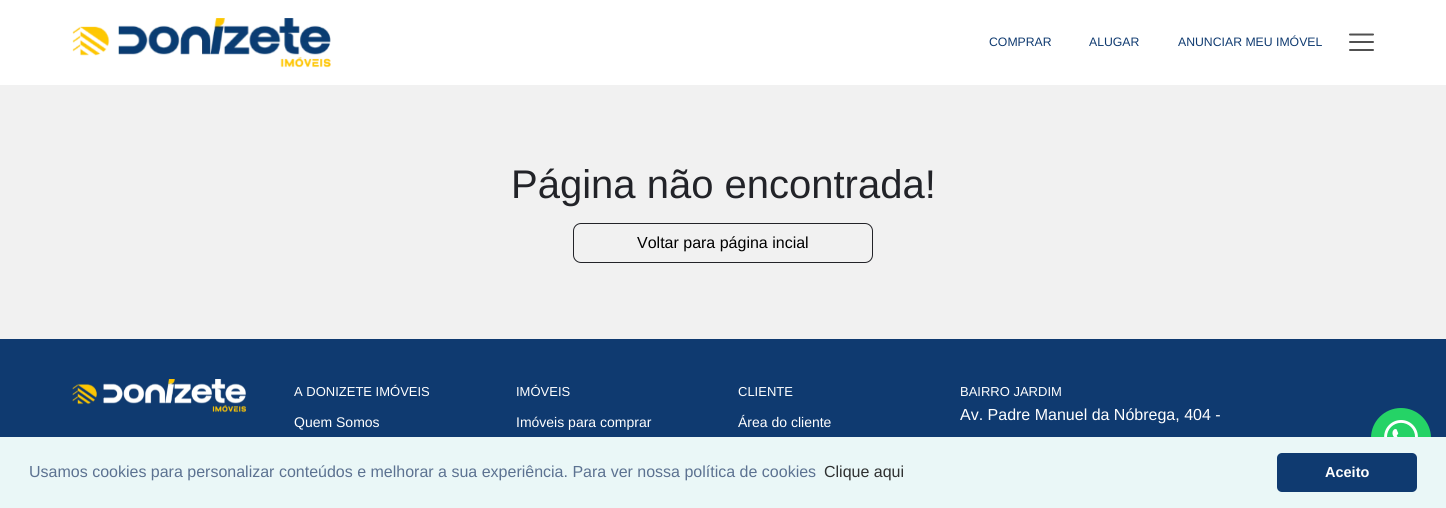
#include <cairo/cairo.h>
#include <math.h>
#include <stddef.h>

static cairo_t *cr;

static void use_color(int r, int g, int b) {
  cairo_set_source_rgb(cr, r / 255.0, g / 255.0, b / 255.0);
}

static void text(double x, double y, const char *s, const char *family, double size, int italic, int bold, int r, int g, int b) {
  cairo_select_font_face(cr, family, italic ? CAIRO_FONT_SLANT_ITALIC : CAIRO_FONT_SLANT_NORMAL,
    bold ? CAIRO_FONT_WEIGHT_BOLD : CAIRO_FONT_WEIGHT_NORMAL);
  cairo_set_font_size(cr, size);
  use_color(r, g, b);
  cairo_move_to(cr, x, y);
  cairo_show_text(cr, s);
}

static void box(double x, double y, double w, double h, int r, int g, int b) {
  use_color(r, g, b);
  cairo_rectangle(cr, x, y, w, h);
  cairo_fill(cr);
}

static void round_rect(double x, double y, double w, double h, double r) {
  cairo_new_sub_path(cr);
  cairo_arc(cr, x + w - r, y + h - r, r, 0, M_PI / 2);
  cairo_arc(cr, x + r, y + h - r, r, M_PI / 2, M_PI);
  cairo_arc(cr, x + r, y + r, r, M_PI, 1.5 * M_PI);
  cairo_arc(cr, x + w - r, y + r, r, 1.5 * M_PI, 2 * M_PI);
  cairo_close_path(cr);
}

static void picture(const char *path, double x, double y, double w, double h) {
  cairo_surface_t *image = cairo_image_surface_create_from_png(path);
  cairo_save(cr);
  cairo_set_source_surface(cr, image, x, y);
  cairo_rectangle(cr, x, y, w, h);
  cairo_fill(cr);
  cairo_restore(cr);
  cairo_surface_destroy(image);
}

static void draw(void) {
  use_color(255, 255, 255);
  cairo_paint(cr);
  picture("img_01.png", 72, 18, 259, 50);
  cairo_new_path(cr);
  cairo_move_to(cr, 1350, 42);
  cairo_line_to(cr, 1373, 42);
  cairo_move_to(cr, 1350, 34.5);
  cairo_line_to(cr, 1373, 34.5);
  cairo_move_to(cr, 1350, 50);
  cairo_line_to(cr, 1373, 50);
  use_color(80, 80, 80);
  cairo_set_line_cap(cr, CAIRO_LINE_CAP_ROUND);
  cairo_set_line_join(cr, CAIRO_LINE_JOIN_ROUND);
  cairo_stroke(cr);
  box(0, 85, 1446, 254, 241, 241, 241);
  round_rect(573.5, 223.5, 299, 39, 7.5);
  use_color(34, 35, 40);
  cairo_set_line_width(cr, 1);
  cairo_set_line_cap(cr, CAIRO_LINE_CAP_BUTT);
  cairo_set_line_join(cr, CAIRO_LINE_JOIN_MITER);
  cairo_stroke(cr);
  box(0, 339, 1446, 98, 15, 58, 112);
  picture("img_02.png", 72, 379, 174, 34);
  use_color(37, 211, 102);
  cairo_arc(cr, 1401, 438, 30, 0, 2 * M_PI);
  cairo_fill(cr);
  picture("img_03.png", 1384, 420, 34, 17);
  box(0, 437, 1446, 71, 234, 247, 247);
  use_color(15, 58, 112);
  round_rect(1277, 453, 140, 39, 5);
  cairo_fill(cr);
  text(989, 46, "COMPRAR", "Liberation Sans", 12.25, 0, 0, 15, 58, 112);
  text(1089, 46, "ALUGAR", "Liberation Sans", 12.25, 0, 0, 15, 58, 112);
  text(1178, 46, "ANUNCIAR MEU IMÓVEL", "Liberation Sans", 12.25, 0, 0, 15, 58, 112);
  text(511, 198, "Página não encontrada!", "Liberation Sans", 40, 0, 0, 34, 35, 40);
  text(637, 248, "Voltar para página incial", "Liberation Sans", 16, 0, 0, 0, 0, 0);
  text(294, 396, "A DONIZETE IMÓVEIS", "Liberation Sans", 13, 0, 0, 255, 255, 255);
  text(294, 427, "Quem Somos", "Liberation Sans", 14, 0, 0, 255, 255, 255);
  text(516, 396, "IMÓVEIS", "Liberation Sans", 13, 0, 0, 255, 255, 255);
  text(516, 427, "Imóveis para comprar", "Liberation Sans", 14, 0, 0, 255, 255, 255);
  text(738, 396, "CLIENTE", "Liberation Sans", 13, 0, 0, 255, 255, 255);
  text(738, 427, "Área do cliente", "Liberation Sans", 14, 0, 0, 255, 255, 255);
  text(960, 396, "BAIRRO JARDIM", "Liberation Sans", 13, 0, 0, 255, 255, 255);
  text(960, 420, "Av. Padre Manuel da Nóbrega, 404 -", "Liberation Sans", 16, 0, 0, 255, 255, 255);
  text(29, 477, "Usamos cookies para personalizar conteúdos e melhorar a sua experiência. Para ver nossa política de cookies", "Liberation Sans", 16, 0, 0, 92, 114, 145);
  text(824, 477, "Clique aqui", "Liberation Sans", 16, 0, 0, 47, 49, 49);
  text(1325, 477, "Aceito", "Liberation Sans", 14.5, 0, 1, 255, 255, 255);
}

int main(void) {
  cairo_surface_t *surface = cairo_image_surface_create(CAIRO_FORMAT_RGB24, 1446, 508);
  cr = cairo_create(surface);
  cairo_font_options_t *options = cairo_font_options_create();
  cairo_font_options_set_hint_metrics(options, CAIRO_HINT_METRICS_OFF);
  cairo_font_options_set_hint_style(options, CAIRO_HINT_STYLE_NONE);
  cairo_set_font_options(cr, options);
  cairo_set_miter_limit(cr, 4);
  draw();
  cairo_surface_write_to_png(surface, "out.png");
  cairo_font_options_destroy(options);
  cairo_destroy(cr);
  cairo_surface_destroy(surface);
  return 0;
}
